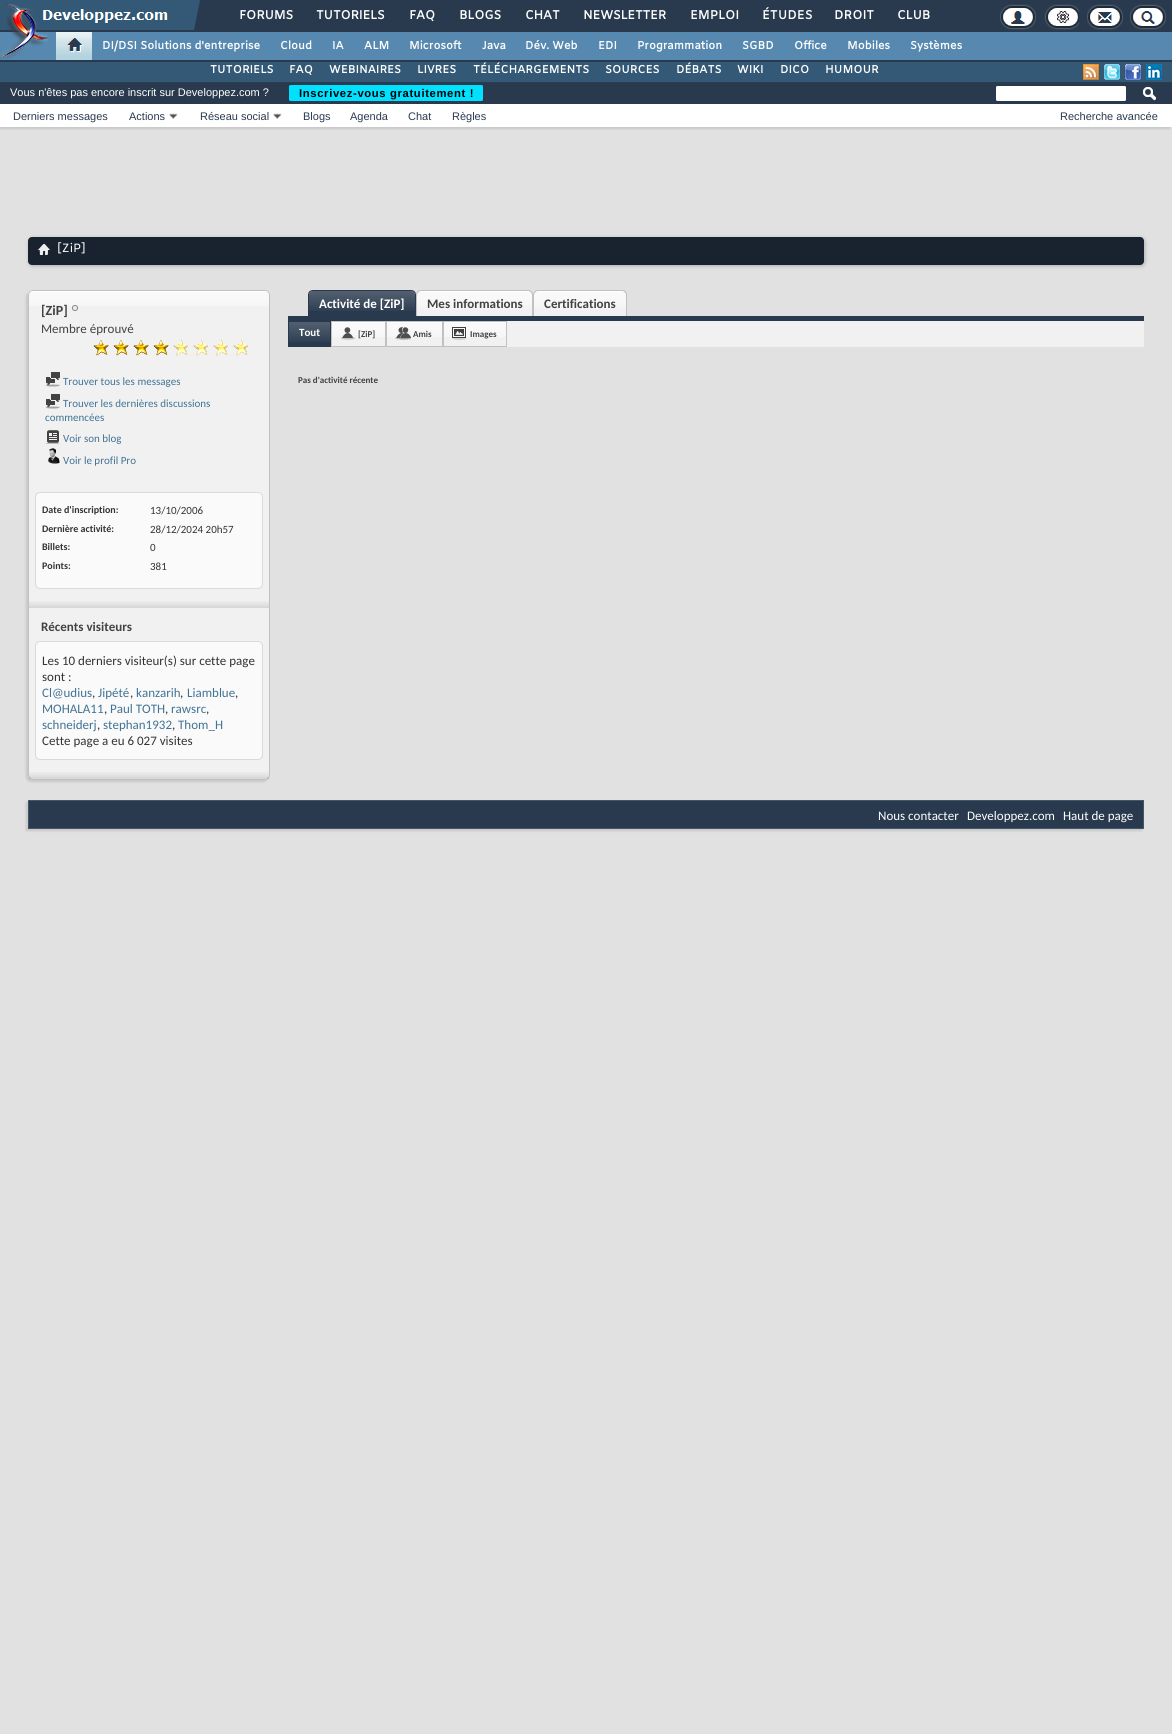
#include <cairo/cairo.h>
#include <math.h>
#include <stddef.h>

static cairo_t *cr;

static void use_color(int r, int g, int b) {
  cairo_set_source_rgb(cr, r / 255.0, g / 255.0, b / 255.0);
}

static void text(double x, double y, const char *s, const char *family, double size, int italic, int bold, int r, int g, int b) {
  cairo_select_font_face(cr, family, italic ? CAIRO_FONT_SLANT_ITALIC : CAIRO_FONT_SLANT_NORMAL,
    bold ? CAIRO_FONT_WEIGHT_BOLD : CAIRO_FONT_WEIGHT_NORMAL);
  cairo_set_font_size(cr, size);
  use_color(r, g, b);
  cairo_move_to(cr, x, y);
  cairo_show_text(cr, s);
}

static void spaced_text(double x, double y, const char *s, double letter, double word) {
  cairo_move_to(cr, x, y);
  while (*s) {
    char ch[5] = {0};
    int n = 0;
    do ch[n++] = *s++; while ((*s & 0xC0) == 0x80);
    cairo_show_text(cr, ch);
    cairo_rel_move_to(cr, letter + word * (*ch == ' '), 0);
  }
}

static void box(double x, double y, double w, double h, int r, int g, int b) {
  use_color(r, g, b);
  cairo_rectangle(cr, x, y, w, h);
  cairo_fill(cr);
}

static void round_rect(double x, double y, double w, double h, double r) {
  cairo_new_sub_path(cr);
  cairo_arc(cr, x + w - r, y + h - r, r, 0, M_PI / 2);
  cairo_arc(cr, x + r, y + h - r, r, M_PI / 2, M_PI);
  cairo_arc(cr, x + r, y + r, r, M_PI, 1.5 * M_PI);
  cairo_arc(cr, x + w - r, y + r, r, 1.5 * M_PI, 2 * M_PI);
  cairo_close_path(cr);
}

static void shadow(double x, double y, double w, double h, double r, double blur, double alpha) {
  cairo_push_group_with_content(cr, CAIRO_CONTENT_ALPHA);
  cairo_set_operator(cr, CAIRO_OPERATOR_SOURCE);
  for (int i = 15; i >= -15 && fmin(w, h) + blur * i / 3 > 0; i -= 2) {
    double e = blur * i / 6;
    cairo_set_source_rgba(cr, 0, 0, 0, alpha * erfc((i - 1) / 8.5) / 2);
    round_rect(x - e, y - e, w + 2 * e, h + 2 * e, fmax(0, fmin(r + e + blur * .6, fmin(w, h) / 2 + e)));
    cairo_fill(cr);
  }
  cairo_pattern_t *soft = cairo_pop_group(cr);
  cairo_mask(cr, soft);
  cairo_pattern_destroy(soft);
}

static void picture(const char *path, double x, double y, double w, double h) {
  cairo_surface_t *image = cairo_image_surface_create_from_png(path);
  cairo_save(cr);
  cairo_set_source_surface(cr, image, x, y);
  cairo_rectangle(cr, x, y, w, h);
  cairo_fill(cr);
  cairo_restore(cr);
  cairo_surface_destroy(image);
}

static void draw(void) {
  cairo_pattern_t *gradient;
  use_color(41, 58, 78);
  cairo_paint(cr);
  box(0, 0, 200, 30, 52, 89, 118);
  picture("img_02.png", 42, 9, 126, 14);
  box(0, 32, 1172, 28, 87, 137, 176);
  picture("img_01.png", 0, 4, 48, 55);
  use_color(41, 58, 78);
  cairo_new_path(cr);
  cairo_move_to(cr, 200, 30);
  cairo_line_to(cr, 194, 30);
  cairo_line_to(cr, 200, 0);
  cairo_close_path(cr);
  cairo_fill(cr);
  picture("img_03.png", 1000, 4, 36, 26);
  picture("img_04.png", 1044, 4, 35, 26);
  picture("img_05.png", 1087, 4, 36, 26);
  picture("img_06.png", 1130, 4, 36, 26);
  gradient = cairo_pattern_create_linear(74, 32, 74, 60);
  cairo_pattern_add_color_stop_rgba(gradient, 0, 0.918, 0.961, 0.973, 1);
  cairo_pattern_add_color_stop_rgba(gradient, 0.37, 0.847, 0.902, 0.925, 1);
  cairo_pattern_add_color_stop_rgba(gradient, 1, 0.682, 0.82, 0.867, 1);
  cairo_set_source(cr, gradient);
  cairo_pattern_destroy(gradient);
  cairo_rectangle(cr, 56, 32, 36, 28);
  cairo_fill(cr);
  picture("img_07.png", 56, 38, 36, 19);
  box(0, 62, 1172, 20, 52, 89, 118);
  picture("img_08.png", 1083, 64, 16, 16);
  picture("img_09.png", 1104, 64, 16, 16);
  picture("img_10.png", 1125, 64, 16, 16);
  picture("img_11.png", 1146, 64, 16, 16);
  box(0, 127, 1172, 1607, 225, 225, 226);
  use_color(200, 200, 200);
  shadow(-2, 85, 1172, 44, 0, 1, 1);
  box(0, 104, 1172, 23, 255, 255, 255);
  box(0, 83, 1172, 21, 41, 58, 78);
  use_color(0, 224, 255);
  round_rect(289, 85, 194, 16, 1.5);
  cairo_fill(cr);
  picture("img_12.png", 169, 113, 9, 6);
  picture("img_12.png", 273, 113, 9, 6);
  use_color(255, 255, 255);
  round_rect(996, 86, 130, 15, 1.5);
  cairo_fill(cr);
  picture("img_13.png", 1143, 87, 13, 14);
  use_color(173, 173, 173);
  shadow(29, 238, 1116, 28, 4, 2, 1);
  use_color(25, 35, 48);
  round_rect(28, 237, 1116, 28, 4);
  cairo_fill(cr);
  picture("img_14.png", 38, 243, 12, 12);
  use_color(200, 200, 200);
  shadow(26, 292, 242, 490, 5, 1, 1);
  use_color(241, 241, 241);
  round_rect(28, 290, 242, 490, 5);
  cairo_fill(cr);
  picture("img_15.png", 28, 291, 242, 15);
  round_rect(28.5, 290.5, 241, 489, 4.5);
  use_color(193, 193, 193);
  cairo_set_line_width(cr, 1);
  cairo_stroke(cr);
  picture("img_16.png", 31, 291, 236, 1);
  picture("img_17.png", 72, 305, 6, 6);
  picture("img_18.png", 93, 340, 16, 16);
  picture("img_18.png", 113, 340, 16, 16);
  picture("img_18.png", 133, 340, 16, 16);
  picture("img_18.png", 153, 340, 16, 16);
  picture("img_19.png", 173, 340, 16, 16);
  picture("img_19.png", 193, 340, 16, 16);
  picture("img_19.png", 213, 340, 16, 16);
  picture("img_19.png", 233, 340, 16, 16);
  picture("img_20.png", 45, 372, 15, 15);
  picture("img_20.png", 45, 394, 15, 15);
  picture("img_21.png", 45, 430, 15, 14);
  picture("img_22.png", 48, 448, 12, 16);
  round_rect(35.5, 492.5, 227, 96, 4.5);
  use_color(218, 218, 218);
  cairo_stroke(cr);
  use_color(250, 250, 250);
  round_rect(36, 493, 226, 95, 5);
  cairo_fill(cr);
  box(259, 493, 1, 1, 250, 250, 250);
  picture("img_23.png", 29, 601, 240, 7);
  round_rect(35.5, 641.5, 227, 118, 4.5);
  use_color(218, 218, 218);
  cairo_stroke(cr);
  use_color(250, 250, 250);
  round_rect(36, 642, 226, 117, 5);
  cairo_fill(cr);
  box(259, 642, 1, 1, 250, 250, 250);
  picture("img_24.png", 29, 772, 240, 7);
  use_color(41, 58, 78);
  cairo_new_path(cr);
  cairo_move_to(cr, 313, 291);
  cairo_line_to(cr, 411, 291);
  cairo_curve_to(cr, 413, 291, 415, 293, 415, 295);
  cairo_line_to(cr, 415, 316);
  cairo_line_to(cr, 309, 316);
  cairo_line_to(cr, 309, 295);
  cairo_curve_to(cr, 309, 293, 311, 291, 313, 291);
  cairo_close_path(cr);
  cairo_fill(cr);
  picture("img_25.png", 308, 291, 108, 20);
  cairo_set_fill_rule(cr, CAIRO_FILL_RULE_EVEN_ODD);
  cairo_new_path(cr);
  cairo_move_to(cr, 313, 290);
  cairo_line_to(cr, 411, 290);
  cairo_curve_to(cr, 414, 290, 416, 292, 416, 295);
  cairo_line_to(cr, 416, 316);
  cairo_line_to(cr, 308, 316);
  cairo_line_to(cr, 308, 295);
  cairo_curve_to(cr, 308, 292, 310, 290, 313, 290);
  cairo_close_path(cr);
  cairo_move_to(cr, 313, 291);
  cairo_line_to(cr, 411, 291);
  cairo_curve_to(cr, 413, 291, 415, 293, 415, 295);
  cairo_line_to(cr, 415, 316);
  cairo_line_to(cr, 309, 316);
  cairo_line_to(cr, 309, 295);
  cairo_curve_to(cr, 309, 293, 311, 291, 313, 291);
  cairo_close_path(cr);
  cairo_fill(cr);
  use_color(241, 241, 241);
  cairo_new_path(cr);
  cairo_move_to(cr, 421, 291);
  cairo_line_to(cr, 528, 291);
  cairo_curve_to(cr, 530, 291, 532, 293, 532, 295);
  cairo_line_to(cr, 532, 316);
  cairo_line_to(cr, 417, 316);
  cairo_line_to(cr, 417, 295);
  cairo_curve_to(cr, 417, 293, 419, 291, 421, 291);
  cairo_close_path(cr);
  cairo_fill(cr);
  picture("img_26.png", 416, 291, 117, 19);
  use_color(193, 193, 193);
  cairo_new_path(cr);
  cairo_move_to(cr, 421, 290);
  cairo_line_to(cr, 528, 290);
  cairo_curve_to(cr, 531, 290, 533, 292, 533, 295);
  cairo_line_to(cr, 533, 316);
  cairo_line_to(cr, 416, 316);
  cairo_line_to(cr, 416, 295);
  cairo_curve_to(cr, 416, 292, 418, 290, 421, 290);
  cairo_close_path(cr);
  cairo_move_to(cr, 421, 291);
  cairo_line_to(cr, 528, 291);
  cairo_curve_to(cr, 530, 291, 532, 293, 532, 295);
  cairo_line_to(cr, 532, 316);
  cairo_line_to(cr, 417, 316);
  cairo_line_to(cr, 417, 295);
  cairo_curve_to(cr, 417, 293, 419, 291, 421, 291);
  cairo_close_path(cr);
  cairo_fill(cr);
  use_color(241, 241, 241);
  cairo_new_path(cr);
  cairo_move_to(cr, 538, 291);
  cairo_line_to(cr, 622, 291);
  cairo_curve_to(cr, 624, 291, 626, 293, 626, 295);
  cairo_line_to(cr, 626, 316);
  cairo_line_to(cr, 534, 316);
  cairo_line_to(cr, 534, 295);
  cairo_curve_to(cr, 534, 293, 536, 291, 538, 291);
  cairo_close_path(cr);
  cairo_fill(cr);
  picture("img_27.png", 533, 291, 94, 19);
  use_color(193, 193, 193);
  cairo_new_path(cr);
  cairo_move_to(cr, 538, 290);
  cairo_line_to(cr, 622, 290);
  cairo_curve_to(cr, 625, 290, 627, 292, 627, 295);
  cairo_line_to(cr, 627, 316);
  cairo_line_to(cr, 533, 316);
  cairo_line_to(cr, 533, 295);
  cairo_curve_to(cr, 533, 292, 535, 290, 538, 290);
  cairo_close_path(cr);
  cairo_move_to(cr, 538, 291);
  cairo_line_to(cr, 622, 291);
  cairo_curve_to(cr, 624, 291, 626, 293, 626, 295);
  cairo_line_to(cr, 626, 316);
  cairo_line_to(cr, 534, 316);
  cairo_line_to(cr, 534, 295);
  cairo_curve_to(cr, 534, 293, 536, 291, 538, 291);
  cairo_close_path(cr);
  cairo_fill(cr);
  box(288, 316, 856, 5, 41, 58, 78);
  box(332, 321, 812, 26, 241, 241, 241);
  box(289, 322, 41, 24, 41, 58, 78);
  picture("img_28.png", 289, 322, 41, 20);
  cairo_rectangle(cr, 288.5, 321.5, 42, 25);
  cairo_stroke(cr);
  picture("img_29.png", 332, 322, 53, 15);
  cairo_rectangle(cr, 331.5, 321.5, 54, 25);
  use_color(193, 193, 193);
  cairo_stroke(cr);
  picture("img_30.png", 341, 327, 14, 13);
  picture("img_31.png", 387, 322, 55, 15);
  cairo_rectangle(cr, 386.5, 321.5, 56, 25);
  cairo_stroke(cr);
  picture("img_32.png", 395, 327, 16, 13);
  picture("img_33.png", 444, 322, 62, 15);
  cairo_rectangle(cr, 443.5, 321.5, 63, 25);
  cairo_stroke(cr);
  picture("img_34.png", 452, 327, 15, 13);
  use_color(200, 200, 200);
  shadow(26, 802, 1116, 29, 0, 1, 1);
  use_color(41, 58, 78);
  cairo_rectangle(cr, 28.5, 800.5, 1115, 28);
  cairo_fill_preserve(cr);
  use_color(66, 87, 105);
  cairo_stroke(cr);
  cairo_select_font_face(cr, "Amiko", CAIRO_FONT_SLANT_NORMAL, CAIRO_FONT_WEIGHT_BOLD);
  cairo_set_font_size(cr, 12.25);
  use_color(255, 255, 255);
  spaced_text(239, 19, "FORUMS", -0.25, 0);
  spaced_text(316, 19, "TUTORIELS", -0.25, 0);
  spaced_text(409, 19, "FAQ", -0.25, 0);
  spaced_text(459, 19, "BLOGS", -0.25, 0);
  spaced_text(525, 19, "CHAT", -0.25, 0);
  spaced_text(583, 19, "NEWSLETTER", -0.25, 0);
  text(690, 19, "EMPLOI", "Amiko", 12.25, 0, 1, 255, 255, 255);
  text(762, 19, "ÉTUDES", "Amiko", 12.25, 0, 1, 255, 255, 255);
  text(834, 19, "DROIT", "Amiko", 12.25, 0, 1, 255, 255, 255);
  spaced_text(897, 19, "CLUB", -0.25, 0);
  text(102, 49, "DI/DSI Solutions d'entreprise", "Amiko", 11, 0, 1, 255, 255, 255);
  text(280, 49, "Cloud", "Amiko", 11, 0, 1, 255, 255, 255);
  text(332, 49, "IA", "Amiko", 11, 0, 1, 255, 255, 255);
  text(364, 49, "ALM", "Amiko", 11, 0, 1, 255, 255, 255);
  text(409, 49, "Microsoft", "Amiko", 11, 0, 1, 255, 255, 255);
  text(482, 49, "Java", "Amiko", 11, 0, 1, 255, 255, 255);
  text(525, 49, "Dév. Web", "Amiko", 11, 0, 1, 255, 255, 255);
  text(598, 49, "EDI", "Amiko", 11, 0, 1, 255, 255, 255);
  text(637, 49, "Programmation", "Amiko", 11, 0, 1, 255, 255, 255);
  text(742, 49, "SGBD", "Amiko", 11, 0, 1, 255, 255, 255);
  text(794, 49, "Office", "Amiko", 11, 0, 1, 255, 255, 255);
  text(847, 49, "Mobiles", "Amiko", 11, 0, 1, 255, 255, 255);
  text(910, 49, "Systèmes", "Amiko", 11, 0, 1, 255, 255, 255);
  text(210, 73, "TUTORIELS", "Amiko", 11, 0, 1, 255, 255, 255);
  text(289, 73, "FAQ", "Amiko", 11, 0, 1, 255, 255, 255);
  text(329, 73, "WEBINAIRES", "Amiko", 11, 0, 1, 255, 255, 255);
  text(417, 73, "LIVRES", "Amiko", 11, 0, 1, 255, 255, 255);
  text(473, 73, "TÉLÉCHARGEMENTS", "Amiko", 11, 0, 1, 255, 255, 255);
  text(605, 73, "SOURCES", "Amiko", 11, 0, 1, 255, 255, 255);
  text(676, 73, "DÉBATS", "Amiko", 11, 0, 1, 255, 255, 255);
  text(737, 73, "WIKI", "Amiko", 11, 0, 1, 255, 255, 255);
  text(780, 73, "DICO", "Amiko", 11, 0, 1, 255, 255, 255);
  text(825, 73, "HUMOUR", "Amiko", 11, 0, 1, 255, 255, 255);
  text(10, 96, "Vous n'êtes pas encore inscrit sur Developpez.com ?", "Liberation Sans", 11, 0, 0, 255, 255, 255);
  cairo_select_font_face(cr, "Liberation Sans", CAIRO_FONT_SLANT_NORMAL, CAIRO_FONT_WEIGHT_BOLD);
  cairo_set_font_size(cr, 11.25);
  use_color(0, 0, 0);
  spaced_text(299, 97, "Inscrivez-vous gratuitement !", 0.65, 0);
  text(13, 120, "Derniers messages", "Liberation Sans", 11, 0, 0, 41, 58, 78);
  text(129, 120, "Actions", "Liberation Sans", 11, 0, 0, 41, 58, 78);
  text(200, 120, "Réseau social", "Liberation Sans", 11, 0, 0, 41, 58, 78);
  text(303, 120, "Blogs", "Liberation Sans", 11, 0, 0, 41, 58, 78);
  text(350, 120, "Agenda", "Liberation Sans", 11, 0, 0, 41, 58, 78);
  text(408, 120, "Chat", "Liberation Sans", 11, 0, 0, 41, 58, 78);
  text(452, 120, "Règles", "Liberation Sans", 11, 0, 0, 41, 58, 78);
  text(1060, 120, "Recherche avancée", "Liberation Sans", 11, 0, 0, 41, 58, 78);
  text(57, 252, "[ZiP]", "Amiko", 12, 0, 0, 255, 255, 255);
  text(41, 315, "[ZiP]", "Carlito", 14, 0, 1, 66, 66, 66);
  text(41, 333, "Membre éprouvé", "Carlito", 13, 0, 0, 66, 66, 66);
  text(63, 385, "Trouver tous les messages", "Carlito", 11, 0, 0, 65, 115, 148);
  text(63, 407, "Trouver les dernières discussions", "Carlito", 11, 0, 0, 65, 115, 148);
  text(45, 421, "commencées", "Carlito", 11, 0, 0, 65, 115, 148);
  text(63, 442, "Voir son blog", "Carlito", 11, 0, 0, 65, 115, 148);
  text(63, 464, "Voir le profil Pro", "Carlito", 11, 0, 0, 65, 115, 148);
  text(42, 513, "Date d'inscription:", "Carlito", 10, 0, 1, 51, 51, 51);
  text(150, 514, "13/10/2006", "Carlito", 11, 0, 0, 51, 51, 51);
  text(42, 532, "Dernière activité:", "Carlito", 10, 0, 1, 51, 51, 51);
  text(150, 533, "28/12/2024 20h57", "Carlito", 11, 0, 0, 51, 51, 51);
  text(42, 550, "Billets:", "Carlito", 10, 0, 1, 51, 51, 51);
  text(150, 551, "0", "Carlito", 11, 0, 0, 51, 51, 51);
  text(42, 569, "Points:", "Carlito", 10, 0, 1, 51, 51, 51);
  text(150, 570, "381", "Carlito", 11, 0, 0, 51, 51, 51);
  text(41, 631, "Récents visiteurs", "Carlito", 13, 0, 1, 66, 66, 66);
  text(42, 665, "Les 10 derniers visiteur(s) sur cette page", "Carlito", 13, 0, 0, 51, 51, 51);
  text(42, 681, "sont :", "Carlito", 13, 0, 0, 51, 51, 51);
  text(42, 697, "Cl@udius", "Carlito", 13, 0, 0, 65, 115, 148);
  text(92, 697, ",", "Carlito", 13, 0, 0, 51, 51, 51);
  text(98, 697, "Jipété", "Carlito", 13, 0, 0, 65, 115, 148);
  text(130, 697, ",", "Carlito", 13, 0, 0, 51, 51, 51);
  text(136, 697, "kanzarih", "Carlito", 13, 0, 0, 65, 115, 148);
  text(180, 697, ",", "Carlito", 13, 0, 0, 51, 51, 51);
  text(187, 697, "Liamblue", "Carlito", 13, 0, 0, 65, 115, 148);
  text(235, 697, ",", "Carlito", 13, 0, 0, 51, 51, 51);
  text(42, 713, "MOHALA11", "Carlito", 13, 0, 0, 65, 115, 148);
  text(104, 713, ",", "Carlito", 13, 0, 0, 51, 51, 51);
  text(110, 713, "Paul TOTH", "Carlito", 13, 0, 0, 65, 115, 148);
  text(165, 713, ",", "Carlito", 13, 0, 0, 51, 51, 51);
  text(171, 713, "rawsrc", "Carlito", 13, 0, 0, 65, 115, 148);
  text(206, 713, ",", "Carlito", 13, 0, 0, 51, 51, 51);
  text(42, 729, "schneiderj", "Carlito", 13, 0, 0, 65, 115, 148);
  text(97, 729, ",", "Carlito", 13, 0, 0, 51, 51, 51);
  text(103, 729, "stephan1932", "Carlito", 13, 0, 0, 65, 115, 148);
  text(172, 729, ",", "Carlito", 13, 0, 0, 51, 51, 51);
  text(178, 729, "Thom_H", "Carlito", 13, 0, 0, 65, 115, 148);
  text(42, 745, "Cette page a eu 6 027 visites", "Carlito", 13, 0, 0, 51, 51, 51);
  text(319, 308, "Activité de [ZiP]", "Carlito", 13, 0, 1, 255, 255, 255);
  text(427, 308, "Mes informations", "Carlito", 13, 0, 1, 66, 66, 66);
  text(544, 308, "Certifications", "Carlito", 13, 0, 1, 66, 66, 66);
  text(299, 336, "Tout", "Carlito", 11, 0, 1, 255, 255, 255);
  text(358, 337, "[ZiP]", "Carlito", 9, 0, 1, 66, 66, 66);
  text(413, 337, "Amis", "Carlito", 9, 0, 1, 66, 66, 66);
  text(470, 337, "Images", "Carlito", 9, 0, 1, 66, 66, 66);
  text(298, 383, "Pas d'activité récente", "Carlito", 9, 0, 1, 66, 66, 66);
  text(878, 820, "Nous contacter", "Carlito", 13, 0, 0, 255, 255, 255);
  text(967, 820, "Developpez.com", "Carlito", 13, 0, 0, 255, 255, 255);
  text(1063, 820, "Haut de page", "Carlito", 13, 0, 0, 255, 255, 255);
}

int main(void) {
  cairo_surface_t *surface = cairo_image_surface_create(CAIRO_FORMAT_RGB24, 1172, 1734);
  cr = cairo_create(surface);
  cairo_font_options_t *options = cairo_font_options_create();
  cairo_font_options_set_hint_metrics(options, CAIRO_HINT_METRICS_OFF);
  cairo_font_options_set_hint_style(options, CAIRO_HINT_STYLE_NONE);
  cairo_set_font_options(cr, options);
  cairo_set_miter_limit(cr, 4);
  draw();
  cairo_surface_write_to_png(surface, "out.png");
  cairo_font_options_destroy(options);
  cairo_destroy(cr);
  cairo_surface_destroy(surface);
  return 0;
}
